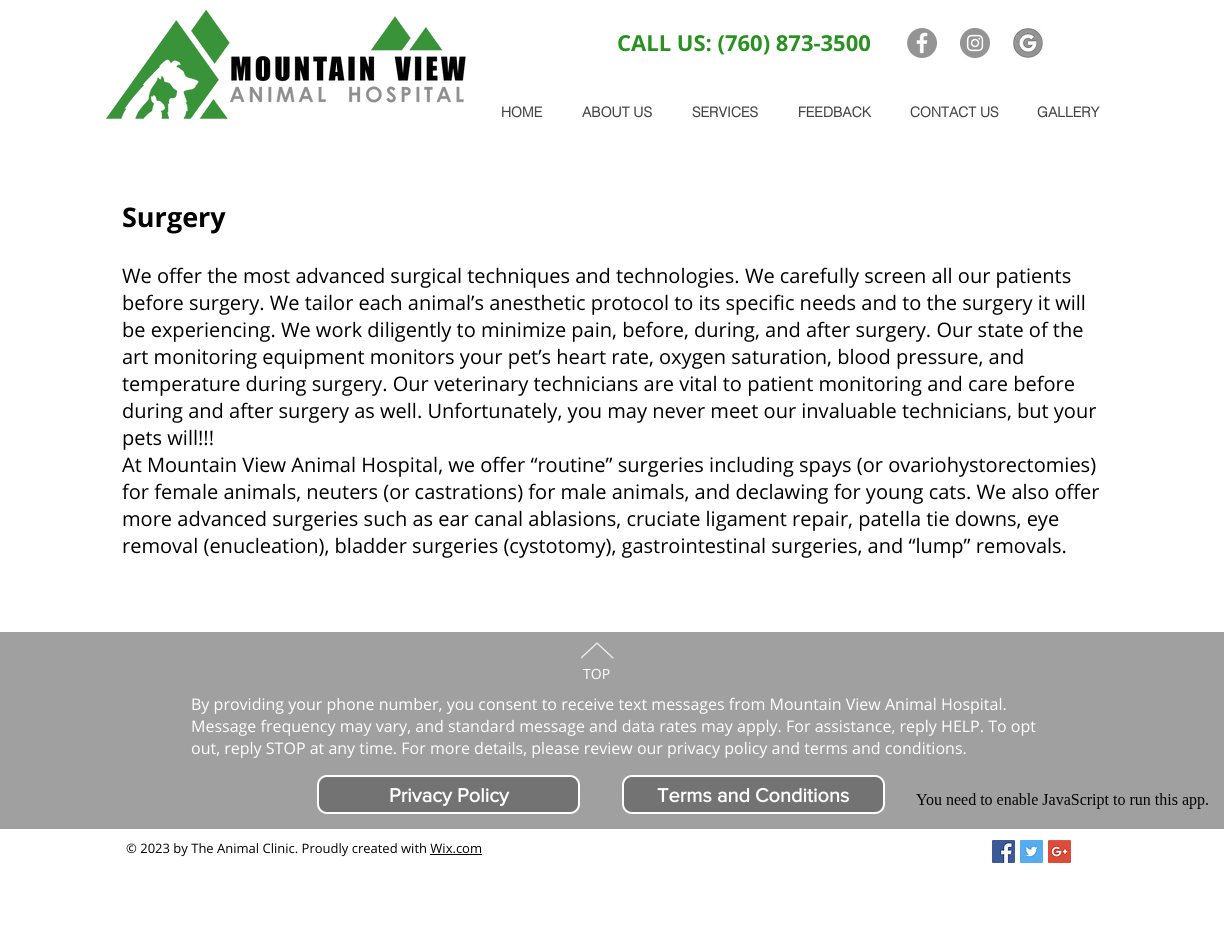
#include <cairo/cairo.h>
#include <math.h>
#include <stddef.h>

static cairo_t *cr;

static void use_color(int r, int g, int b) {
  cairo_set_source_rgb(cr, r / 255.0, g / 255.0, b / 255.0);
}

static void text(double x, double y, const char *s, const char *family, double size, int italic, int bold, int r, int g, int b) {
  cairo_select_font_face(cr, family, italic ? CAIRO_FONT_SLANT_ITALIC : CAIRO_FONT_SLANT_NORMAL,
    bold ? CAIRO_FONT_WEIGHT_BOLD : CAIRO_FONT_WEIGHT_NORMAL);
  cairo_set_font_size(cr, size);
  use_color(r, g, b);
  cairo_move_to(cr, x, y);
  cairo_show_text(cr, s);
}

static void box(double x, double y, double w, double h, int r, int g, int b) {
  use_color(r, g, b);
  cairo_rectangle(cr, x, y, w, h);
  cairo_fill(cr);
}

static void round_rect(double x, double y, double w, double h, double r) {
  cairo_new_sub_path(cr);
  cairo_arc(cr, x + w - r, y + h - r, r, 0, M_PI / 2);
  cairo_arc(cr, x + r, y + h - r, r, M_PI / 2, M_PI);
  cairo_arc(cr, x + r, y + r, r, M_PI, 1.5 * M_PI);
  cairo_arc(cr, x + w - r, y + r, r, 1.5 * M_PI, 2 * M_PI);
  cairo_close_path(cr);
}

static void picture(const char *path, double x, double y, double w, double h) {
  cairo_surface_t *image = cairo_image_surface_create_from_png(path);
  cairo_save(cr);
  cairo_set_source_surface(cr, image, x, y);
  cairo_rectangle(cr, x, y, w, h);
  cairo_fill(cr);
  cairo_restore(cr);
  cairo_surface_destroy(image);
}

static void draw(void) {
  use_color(255, 255, 255);
  cairo_paint(cr);
  picture("img_01.png", 106, 9, 360, 110);
  picture("img_02.png", 907, 28, 30, 30);
  picture("img_03.png", 960, 28, 30, 30);
  picture("img_04.png", 1013, 28, 30, 30);
  box(0, 632, 1224, 197, 160, 160, 160);
  picture("img_05.png", 581, 642, 33, 17);
  use_color(115, 115, 115);
  round_rect(318, 776, 261, 37, 9);
  cairo_fill_preserve(cr);
  use_color(255, 255, 255);
  cairo_stroke(cr);
  use_color(115, 115, 115);
  round_rect(623, 776, 261, 37, 9);
  cairo_fill_preserve(cr);
  use_color(255, 255, 255);
  cairo_stroke(cr);
  box(430, 854, 52, 1, 0, 0, 0);
  picture("img_06.png", 992, 840, 23, 23);
  picture("img_07.png", 1020, 840, 23, 23);
  picture("img_08.png", 1048, 840, 23, 23);
  picture("img_09.png", 916, 793, 292, 16);
  text(617, 51, "CALL US: (760) 873-3500", "Open Sans", 22, 0, 1, 40, 145, 31);
  text(501, 117, "HOME", "helvetica", 14, 0, 1, 68, 68, 68);
  text(582, 117, "ABOUT US", "helvetica", 14, 0, 1, 68, 68, 68);
  text(692, 117, "SERVICES", "helvetica", 14, 0, 1, 68, 68, 68);
  text(798, 117, "FEEDBACK", "helvetica", 14, 0, 1, 68, 68, 68);
  text(910, 117, "CONTACT US", "helvetica", 14, 0, 1, 68, 68, 68);
  text(1037, 117, "GALLERY", "helvetica", 14, 0, 1, 68, 68, 68);
  text(122, 227, "Surgery", "Open Sans", 27, 0, 1, 0, 0, 0);
  text(122, 283, "We offer the most advanced surgical techniques and technologies. We carefully screen all our patients", "Open Sans", 20, 0, 0, 0, 0, 0);
  text(122, 310, "before surgery. We tailor each animal’s anesthetic protocol to its specific needs and to the surgery it will", "Open Sans", 20, 0, 0, 0, 0, 0);
  text(122, 337, "be experiencing. We work diligently to minimize pain, before, during, and after surgery. Our state of the", "Open Sans", 20, 0, 0, 0, 0, 0);
  text(122, 364, "art monitoring equipment monitors your pet’s heart rate, oxygen saturation, blood pressure, and", "Open Sans", 20, 0, 0, 0, 0, 0);
  text(122, 391, "temperature during surgery. Our veterinary technicians are vital to patient monitoring and care before", "Open Sans", 20, 0, 0, 0, 0, 0);
  text(122, 418, "during and after surgery as well. Unfortunately, you may never meet our invaluable technicians, but your", "Open Sans", 20, 0, 0, 0, 0, 0);
  text(122, 445, "pets will!!!", "Open Sans", 20, 0, 0, 0, 0, 0);
  text(122, 472, "At Mountain View Animal Hospital, we offer “routine” surgeries including spays (or ovariohystorectomies)", "Open Sans", 20, 0, 0, 0, 0, 0);
  text(122, 499, "for female animals, neuters (or castrations) for male animals, and declawing for young cats. We also offer", "Open Sans", 20, 0, 0, 0, 0, 0);
  text(122, 526, "more advanced surgeries such as ear canal ablasions, cruciate ligament repair, patella tie downs, eye", "Open Sans", 20, 0, 0, 0, 0, 0);
  text(122, 553, "removal (enucleation), bladder surgeries (cystotomy), gastrointestinal surgeries, and “lump” removals.", "Open Sans", 20, 0, 0, 0, 0, 0);
  text(583, 679, "TOP", "Open Sans", 14, 0, 0, 255, 255, 255);
  text(191, 710, "By providing your phone number, you consent to receive text messages from Mountain View Animal Hospital.", "Open Sans", 16, 0, 0, 255, 255, 255);
  text(191, 732, "Message frequency may vary, and standard message and data rates may apply. For assistance, reply HELP. To opt", "Open Sans", 16, 0, 0, 255, 255, 255);
  text(191, 754, "out, reply STOP at any time. For more details, please review our privacy policy and terms and conditions.", "Open Sans", 16, 0, 0, 255, 255, 255);
  text(389, 802, "Privacy Policy", "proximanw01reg", 20, 0, 1, 255, 255, 255);
  text(657, 802, "Terms and Conditions", "proximanw01reg", 20, 0, 1, 255, 255, 255);
  text(126, 853, "© 2023 by The Animal Clinic. Proudly created with Wix.com", "Open Sans", 13, 0, 0, 0, 0, 0);
}

int main(void) {
  cairo_surface_t *surface = cairo_image_surface_create(CAIRO_FORMAT_RGB24, 1224, 949);
  cr = cairo_create(surface);
  cairo_font_options_t *options = cairo_font_options_create();
  cairo_font_options_set_hint_metrics(options, CAIRO_HINT_METRICS_OFF);
  cairo_font_options_set_hint_style(options, CAIRO_HINT_STYLE_NONE);
  cairo_set_font_options(cr, options);
  cairo_set_miter_limit(cr, 4);
  draw();
  cairo_surface_write_to_png(surface, "out.png");
  cairo_font_options_destroy(options);
  cairo_destroy(cr);
  cairo_surface_destroy(surface);
  return 0;
}
